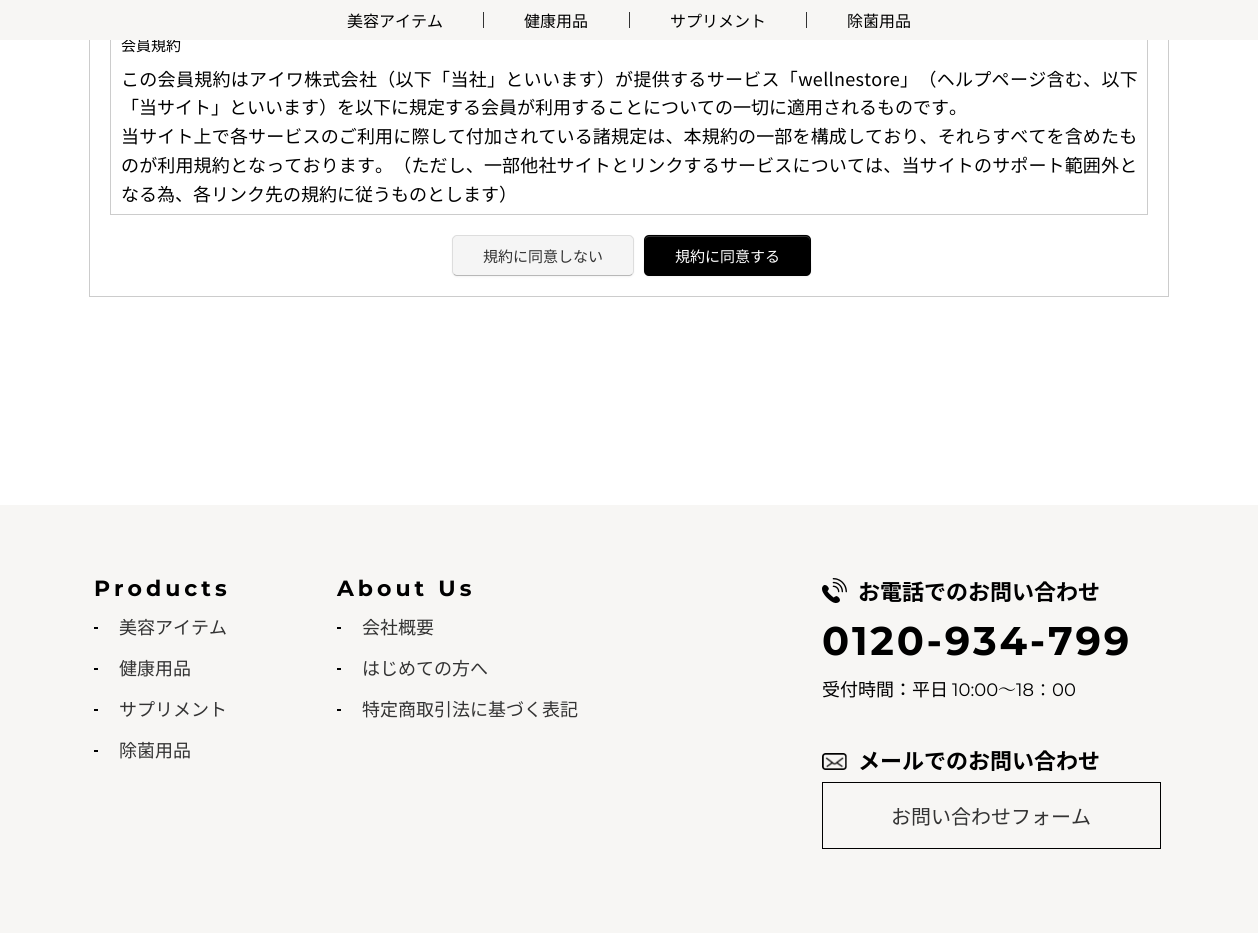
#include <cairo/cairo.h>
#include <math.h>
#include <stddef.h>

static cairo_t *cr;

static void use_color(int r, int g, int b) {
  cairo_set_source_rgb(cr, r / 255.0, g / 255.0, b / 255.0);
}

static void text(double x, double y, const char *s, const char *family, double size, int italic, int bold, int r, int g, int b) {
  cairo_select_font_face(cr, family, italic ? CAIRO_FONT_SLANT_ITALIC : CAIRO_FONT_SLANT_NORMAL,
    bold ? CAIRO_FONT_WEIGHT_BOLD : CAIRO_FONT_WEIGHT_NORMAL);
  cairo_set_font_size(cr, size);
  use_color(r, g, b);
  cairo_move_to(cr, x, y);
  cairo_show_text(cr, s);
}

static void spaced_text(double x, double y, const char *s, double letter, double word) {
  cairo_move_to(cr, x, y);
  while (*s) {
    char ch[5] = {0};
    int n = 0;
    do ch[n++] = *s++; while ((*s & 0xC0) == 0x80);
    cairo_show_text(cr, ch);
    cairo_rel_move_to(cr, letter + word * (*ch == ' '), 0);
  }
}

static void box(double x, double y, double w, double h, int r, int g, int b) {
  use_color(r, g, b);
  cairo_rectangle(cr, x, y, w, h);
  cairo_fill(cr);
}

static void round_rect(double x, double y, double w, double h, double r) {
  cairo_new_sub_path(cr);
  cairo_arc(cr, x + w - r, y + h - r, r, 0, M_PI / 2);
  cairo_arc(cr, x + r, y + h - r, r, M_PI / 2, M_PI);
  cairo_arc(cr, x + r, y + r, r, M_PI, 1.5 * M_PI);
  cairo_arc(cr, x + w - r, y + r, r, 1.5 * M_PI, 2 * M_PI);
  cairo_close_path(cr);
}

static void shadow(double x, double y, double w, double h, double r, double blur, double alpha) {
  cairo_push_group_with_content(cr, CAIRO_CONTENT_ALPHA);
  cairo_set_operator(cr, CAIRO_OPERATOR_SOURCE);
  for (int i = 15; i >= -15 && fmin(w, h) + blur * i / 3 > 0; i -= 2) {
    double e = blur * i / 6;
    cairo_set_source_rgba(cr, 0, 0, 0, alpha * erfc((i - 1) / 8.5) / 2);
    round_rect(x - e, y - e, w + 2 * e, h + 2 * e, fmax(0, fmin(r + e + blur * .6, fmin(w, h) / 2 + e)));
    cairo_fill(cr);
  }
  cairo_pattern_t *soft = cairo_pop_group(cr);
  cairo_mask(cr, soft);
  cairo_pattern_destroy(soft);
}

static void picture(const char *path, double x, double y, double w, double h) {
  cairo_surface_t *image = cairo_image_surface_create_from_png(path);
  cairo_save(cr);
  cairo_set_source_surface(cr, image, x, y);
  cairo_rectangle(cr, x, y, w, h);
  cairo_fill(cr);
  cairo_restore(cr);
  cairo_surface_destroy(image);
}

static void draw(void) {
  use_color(255, 255, 255);
  cairo_paint(cr);
  cairo_rectangle(cr, 89.5, -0.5, 1079, 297);
  use_color(204, 204, 204);
  cairo_set_line_width(cr, 1);
  cairo_stroke(cr);
  cairo_rectangle(cr, 110.5, 35.5, 1037, 179);
  cairo_stroke(cr);
  use_color(0, 0, 0);
  shadow(452, 236, 182, 41, 5, 1, 0.05);
  use_color(245, 245, 245);
  round_rect(452, 235, 182, 41, 5);
  cairo_fill(cr);
  cairo_new_path(cr);
  cairo_move_to(cr, 632, 274);
  cairo_curve_to(cr, 631.5, 275, 630, 275.5, 629, 275.5);
  cairo_line_to(cr, 457, 275.5);
  cairo_curve_to(cr, 456, 275.5, 454.5, 275, 454, 274);
  use_color(184, 184, 184);
  cairo_stroke(cr);
  cairo_new_path(cr);
  cairo_move_to(cr, 454, 274);
  cairo_curve_to(cr, 453, 273.5, 452.5, 272, 452.5, 271);
  cairo_line_to(cr, 452.5, 240);
  cairo_curve_to(cr, 452.5, 239, 453, 237.5, 454, 237);
  cairo_curve_to(cr, 454.5, 236, 456, 235.5, 457, 235.5);
  cairo_line_to(cr, 629, 235.5);
  cairo_curve_to(cr, 630, 235.5, 631.5, 236, 632, 237);
  cairo_curve_to(cr, 633, 237.5, 633.5, 239, 633.5, 240);
  cairo_line_to(cr, 633.5, 271);
  cairo_curve_to(cr, 633.5, 272, 633, 273.5, 632, 274);
  use_color(221, 221, 221);
  cairo_stroke(cr);
  use_color(0, 0, 0);
  shadow(644, 236, 167, 41, 5, 1, 0.05);
  use_color(0, 0, 0);
  round_rect(644, 235, 167, 41, 5);
  cairo_fill(cr);
  use_color(51, 51, 51);
  cairo_new_path(cr);
  cairo_move_to(cr, 649, 237);
  cairo_line_to(cr, 806, 237);
  cairo_curve_to(cr, 808, 237, 810, 239, 810, 241);
  cairo_line_to(cr, 810, 240);
  cairo_curve_to(cr, 810, 238, 808, 236, 806, 236);
  cairo_line_to(cr, 649, 236);
  cairo_curve_to(cr, 647, 236, 645, 238, 645, 240);
  cairo_line_to(cr, 645, 241);
  cairo_curve_to(cr, 645, 239, 647, 237, 649, 237);
  cairo_close_path(cr);
  cairo_fill(cr);
  cairo_new_path(cr);
  cairo_move_to(cr, 809, 274);
  cairo_curve_to(cr, 808.5, 275, 807, 275.5, 806, 275.5);
  cairo_line_to(cr, 649, 275.5);
  cairo_curve_to(cr, 648, 275.5, 646.5, 275, 646, 274);
  cairo_set_source_rgba(cr, 0, 0, 0, 0.25);
  cairo_stroke(cr);
  cairo_new_path(cr);
  cairo_move_to(cr, 646, 274);
  cairo_curve_to(cr, 643, 271.5, 644.5, 263.5, 644.5, 260.5);
  cairo_curve_to(cr, 644.5, 229, 639.5, 235.5, 675, 235.5);
  cairo_line_to(cr, 780, 235.5);
  cairo_curve_to(cr, 815.5, 235.5, 810.5, 229, 810.5, 260.5);
  cairo_curve_to(cr, 810.5, 263.5, 812, 271.5, 809, 274);
  cairo_set_source_rgba(cr, 0, 0, 0, 0.1);
  cairo_stroke(cr);
  box(0, 505, 1258, 428, 247, 246, 244);
  box(94, 627, 4, 2, 0, 0, 0);
  box(94, 668, 4, 2, 0, 0, 0);
  box(94, 709, 4, 2, 0, 0, 0);
  box(94, 750, 4, 2, 0, 0, 0);
  box(337, 627, 4, 2, 0, 0, 0);
  box(337, 668, 4, 2, 0, 0, 0);
  box(337, 709, 4, 2, 0, 0, 0);
  picture("img_01.png", 822, 578, 25, 25);
  picture("img_02.png", 822, 753, 25, 17);
  cairo_rectangle(cr, 822.5, 782.5, 338, 66);
  cairo_stroke(cr);
  text(121, 51, "会員規約", "Noto Sans JP", 15, 0, 0, 0, 0, 0);
  box(0, 0, 1258, 40, 247, 246, 244);
  cairo_save(cr);
  cairo_rectangle(cr, 807, 12, 144, 16);
  cairo_clip(cr);
  text(847, 27, "除菌用品", "Noto Sans JP", 16, 0, 0, 0, 0, 0);
  cairo_restore(cr);
  box(806, 12, 1, 16, 51, 51, 51);
  text(670, 27, "サプリメント", "Noto Sans JP", 16, 0, 0, 0, 0, 0);
  box(629, 12, 1, 16, 51, 51, 51);
  cairo_save(cr);
  cairo_rectangle(cr, 484, 12, 145, 16);
  cairo_clip(cr);
  text(524, 27, "健康用品", "Noto Sans JP", 16, 0, 0, 0, 0, 0);
  cairo_restore(cr);
  box(483, 12, 1, 16, 51, 51, 51);
  cairo_save(cr);
  cairo_rectangle(cr, 307, 12, 176, 16);
  cairo_clip(cr);
  text(347, 27, "美容アイテム", "Noto Sans JP", 16, 0, 0, 0, 0, 0);
  cairo_restore(cr);
  cairo_set_font_size(cr, 18);
  use_color(0, 0, 0);
  spaced_text(121, 86, "この会員規約はアイワ株式会社（以下「当社」といいます）が提供するサービス「wellnestore」（ヘルプページ含む、以下", 0.3, 0);
  text(121, 114, "「当サイト」といいます）を以下に規定する会員が利用することについての一切に適用されるものです。", "Noto Sans JP", 18, 0, 0, 0, 0, 0);
  spaced_text(121, 143, "当サイト上で各サービスのご利用に際して付加されている諸規定は、本規約の一部を構成しており、それらすべてを含めたも", 0.15, 0);
  spaced_text(121, 172, "のが利用規約となっております。（ただし、一部他社サイトとリンクするサービスについては、当サイトのサポート範囲外と", 0.15, 0);
  text(121, 201, "なる為、各リンク先の規約に従うものとします）", "Noto Sans JP", 18, 0, 0, 0, 0, 0);
  text(483, 262, "規約に同意しない", "Noto Sans JP", 15, 0, 0, 51, 51, 51);
  text(675, 262, "規約に同意する", "Noto Sans JP", 15, 0, 0, 255, 255, 255);
  cairo_select_font_face(cr, "Montserrat", CAIRO_FONT_SLANT_NORMAL, CAIRO_FONT_WEIGHT_BOLD);
  cairo_set_font_size(cr, 22);
  use_color(0, 0, 0);
  spaced_text(94, 596, "Products", 4, 0);
  text(119, 634, "美容アイテム", "Noto Sans JP", 18, 0, 0, 51, 51, 51);
  text(119, 675, "健康用品", "Noto Sans JP", 18, 0, 0, 51, 51, 51);
  text(119, 716, "サプリメント", "Noto Sans JP", 18, 0, 0, 51, 51, 51);
  text(119, 757, "除菌用品", "Noto Sans JP", 18, 0, 0, 51, 51, 51);
  cairo_select_font_face(cr, "Montserrat", CAIRO_FONT_SLANT_NORMAL, CAIRO_FONT_WEIGHT_BOLD);
  cairo_set_font_size(cr, 22);
  use_color(0, 0, 0);
  spaced_text(337, 596, "About Us", 4, 0);
  text(362, 634, "会社概要", "Noto Sans JP", 18, 0, 0, 51, 51, 51);
  text(362, 675, "はじめての方へ", "Noto Sans JP", 18, 0, 0, 51, 51, 51);
  text(362, 716, "特定商取引法に基づく表記", "Noto Sans JP", 18, 0, 0, 51, 51, 51);
  text(858, 600, "お電話でのお問い合わせ", "Noto Sans JP", 22, 0, 1, 0, 0, 0);
  cairo_select_font_face(cr, "Montserrat", CAIRO_FONT_SLANT_NORMAL, CAIRO_FONT_WEIGHT_BOLD);
  cairo_set_font_size(cr, 40);
  spaced_text(822, 655, "0120-934-799", 2.75, 0);
  text(822, 696, "受付時間：平日", "Noto Sans JP", 18, 0, 0, 0, 0, 0);
  text(952, 696, "10:00", "Montserrat", 18, 0, 0, 0, 0, 0);
  text(998, 696, "～", "Noto Serif JP", 18, 0, 0, 0, 0, 0);
  text(1016, 696, "18", "Montserrat", 18, 0, 0, 0, 0, 0);
  text(1034, 696, "：", "Noto Serif JP", 18, 0, 0, 0, 0, 0);
  text(1052, 696, "00", "Montserrat", 18, 0, 0, 0, 0, 0);
  text(858, 769, "メールでのお問い合わせ", "Noto Sans JP", 22, 0, 1, 0, 0, 0);
  text(891, 824, "お問い合わせフォーム", "Noto Sans JP", 20, 0, 0, 51, 51, 51);
}

int main(void) {
  cairo_surface_t *surface = cairo_image_surface_create(CAIRO_FORMAT_RGB24, 1258, 933);
  cr = cairo_create(surface);
  cairo_font_options_t *options = cairo_font_options_create();
  cairo_font_options_set_hint_metrics(options, CAIRO_HINT_METRICS_OFF);
  cairo_font_options_set_hint_style(options, CAIRO_HINT_STYLE_NONE);
  cairo_set_font_options(cr, options);
  cairo_set_miter_limit(cr, 4);
  draw();
  cairo_surface_write_to_png(surface, "out.png");
  cairo_font_options_destroy(options);
  cairo_destroy(cr);
  cairo_surface_destroy(surface);
  return 0;
}
